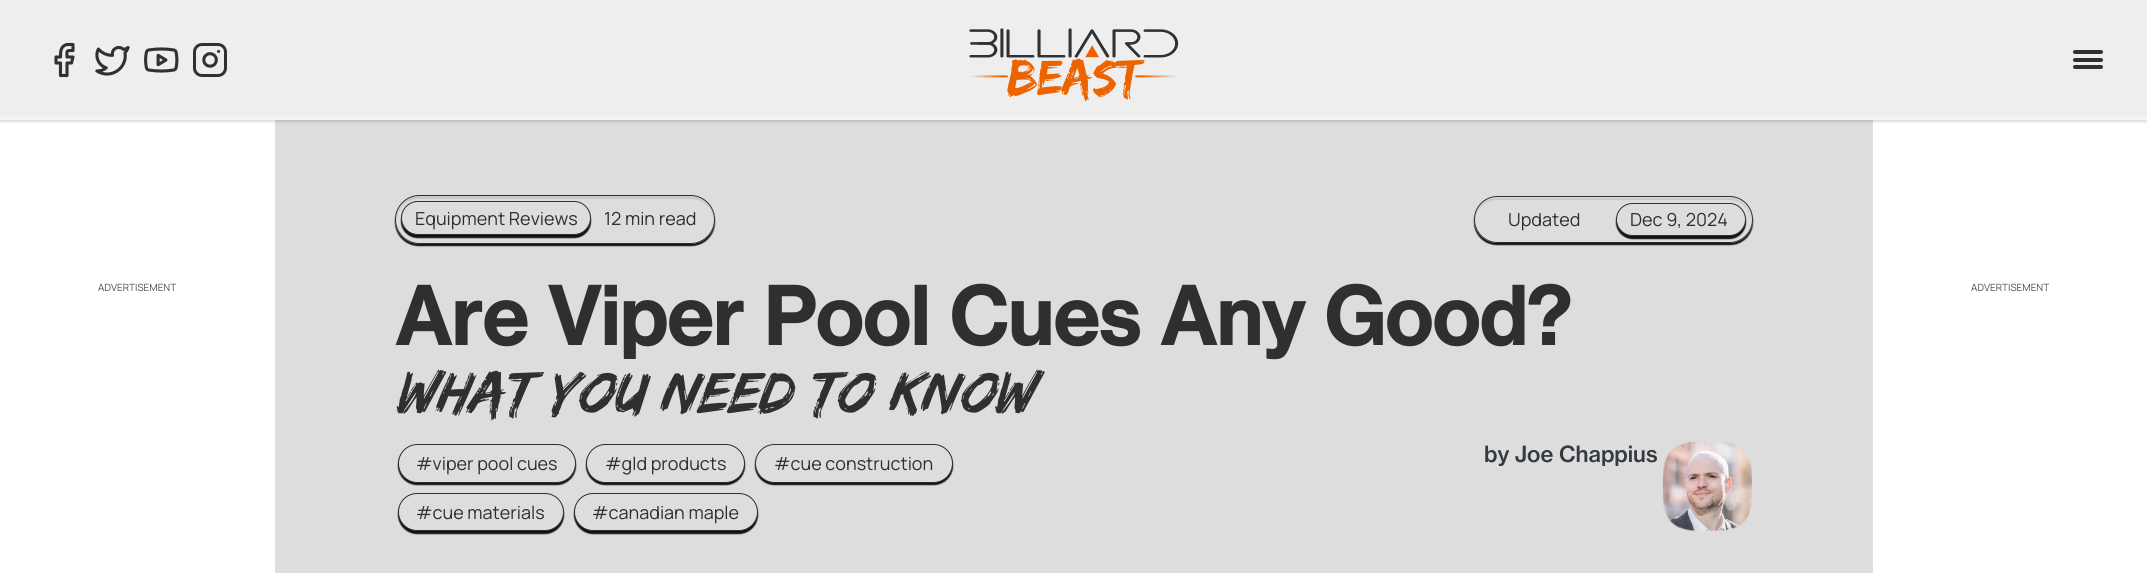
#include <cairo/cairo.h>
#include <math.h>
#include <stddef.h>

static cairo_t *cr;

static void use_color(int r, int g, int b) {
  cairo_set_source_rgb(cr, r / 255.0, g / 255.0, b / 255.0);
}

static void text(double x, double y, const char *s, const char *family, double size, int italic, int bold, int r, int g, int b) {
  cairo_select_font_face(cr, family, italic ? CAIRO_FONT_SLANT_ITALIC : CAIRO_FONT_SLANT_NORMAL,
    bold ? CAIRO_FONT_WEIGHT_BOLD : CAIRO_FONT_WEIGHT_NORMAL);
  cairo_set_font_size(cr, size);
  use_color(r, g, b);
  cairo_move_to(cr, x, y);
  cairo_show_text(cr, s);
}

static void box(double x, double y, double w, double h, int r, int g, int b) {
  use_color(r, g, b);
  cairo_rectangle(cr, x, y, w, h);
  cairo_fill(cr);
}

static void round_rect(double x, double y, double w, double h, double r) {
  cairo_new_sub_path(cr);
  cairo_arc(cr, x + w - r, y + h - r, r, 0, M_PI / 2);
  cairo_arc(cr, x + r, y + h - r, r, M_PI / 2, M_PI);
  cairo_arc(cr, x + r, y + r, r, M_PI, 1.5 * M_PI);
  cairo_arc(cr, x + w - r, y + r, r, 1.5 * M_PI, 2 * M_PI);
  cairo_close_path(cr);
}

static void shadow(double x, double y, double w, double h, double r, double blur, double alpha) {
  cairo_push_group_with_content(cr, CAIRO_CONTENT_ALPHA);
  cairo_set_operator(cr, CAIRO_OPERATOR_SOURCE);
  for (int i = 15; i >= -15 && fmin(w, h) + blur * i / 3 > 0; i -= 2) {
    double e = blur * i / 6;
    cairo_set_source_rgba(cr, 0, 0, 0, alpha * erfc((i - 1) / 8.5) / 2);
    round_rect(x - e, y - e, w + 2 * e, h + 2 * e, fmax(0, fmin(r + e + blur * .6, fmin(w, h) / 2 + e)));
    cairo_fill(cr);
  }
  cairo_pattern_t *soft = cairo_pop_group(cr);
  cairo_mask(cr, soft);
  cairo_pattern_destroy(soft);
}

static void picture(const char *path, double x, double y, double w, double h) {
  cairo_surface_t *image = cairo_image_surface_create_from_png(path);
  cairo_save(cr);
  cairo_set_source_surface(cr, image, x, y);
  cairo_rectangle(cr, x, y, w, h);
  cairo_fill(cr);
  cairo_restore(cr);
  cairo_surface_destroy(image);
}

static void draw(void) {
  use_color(255, 255, 255);
  cairo_paint(cr);
  box(0, 0, 2147, 116, 238, 238, 238);
  box(0, 116, 2147, 4, 243, 243, 243);
  box(275, 120, 1598, 453, 221, 221, 221);
  cairo_save(cr);
  cairo_rectangle(cr, 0, 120, 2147, 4);
  cairo_clip(cr);
  use_color(0, 0, 0);
  shadow(0, 0, 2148, 120, 0, 2.5, 0.3);
  cairo_restore(cr);
  cairo_new_path(cr);
  cairo_move_to(cr, 73, 44.5);
  cairo_line_to(cr, 67, 44.5);
  cairo_curve_to(cr, 60.5, 46, 60.5, 51.5, 60.5, 57);
  cairo_line_to(cr, 56, 57);
  cairo_line_to(cr, 56, 63);
  cairo_line_to(cr, 60.5, 63);
  cairo_line_to(cr, 60.5, 75.5);
  cairo_line_to(cr, 67, 75.5);
  cairo_line_to(cr, 67, 63);
  cairo_line_to(cr, 71.5, 63);
  cairo_line_to(cr, 73, 57);
  cairo_line_to(cr, 67, 57);
  cairo_curve_to(cr, 67, 50, 66, 50.5, 73, 50.5);
  cairo_close_path(cr);
  use_color(48, 49, 51);
  cairo_set_line_width(cr, 3.1);
  cairo_set_line_cap(cr, CAIRO_LINE_CAP_ROUND);
  cairo_set_line_join(cr, CAIRO_LINE_JOIN_ROUND);
  cairo_stroke(cr);
  picture("img_01.png", 95, 45, 35, 31);
  picture("img_02.png", 144, 47, 35, 26);
  picture("img_03.png", 193, 43, 34, 34);
  picture("img_04.png", 969, 28, 210, 74);
  round_rect(2073, 50, 30, 4, 2);
  cairo_fill(cr);
  round_rect(2073, 58, 30, 4, 2);
  cairo_fill(cr);
  round_rect(2073, 65, 30, 4, 2);
  cairo_fill(cr);
  use_color(17, 17, 17);
  shadow(395, 198, 320, 48, 24, 0.5, 1);
  use_color(221, 221, 221);
  round_rect(395, 195, 320, 49, 24.5);
  cairo_fill(cr);
  use_color(201, 201, 201);
  cairo_new_path(cr);
  cairo_move_to(cr, 419, 199);
  cairo_line_to(cr, 691, 199);
  cairo_curve_to(cr, 703, 199, 713, 208, 714, 221);
  cairo_line_to(cr, 714, 220);
  cairo_curve_to(cr, 714, 207, 703, 196, 690, 196);
  cairo_line_to(cr, 420, 196);
  cairo_curve_to(cr, 407, 196, 396, 207, 396, 220);
  cairo_line_to(cr, 396, 221);
  cairo_curve_to(cr, 397, 208, 407, 199, 419, 199);
  cairo_close_path(cr);
  cairo_fill(cr);
  round_rect(395.5, 195.5, 319, 48, 24);
  use_color(47, 47, 47);
  cairo_set_line_width(cr, 1);
  cairo_set_line_cap(cr, CAIRO_LINE_CAP_BUTT);
  cairo_set_line_join(cr, CAIRO_LINE_JOIN_MITER);
  cairo_stroke(cr);
  use_color(17, 17, 17);
  shadow(401, 204, 190, 34, 17, 0.5, 1);
  use_color(221, 221, 221);
  round_rect(401.5, 201.5, 189, 33, 16.5);
  cairo_fill_preserve(cr);
  use_color(47, 47, 47);
  cairo_stroke(cr);
  use_color(17, 17, 17);
  shadow(1474, 199, 279, 46, 23, 0.5, 1);
  use_color(221, 221, 221);
  round_rect(1474, 196, 279, 47, 23.5);
  cairo_fill(cr);
  use_color(201, 201, 201);
  cairo_new_path(cr);
  cairo_move_to(cr, 1497, 200);
  cairo_line_to(cr, 1729, 200);
  cairo_curve_to(cr, 1741, 200, 1750, 209, 1751, 221);
  cairo_line_to(cr, 1751, 220);
  cairo_curve_to(cr, 1751, 208, 1741, 198, 1730, 198);
  cairo_line_to(cr, 1496, 198);
  cairo_curve_to(cr, 1485, 198, 1475, 208, 1475, 220);
  cairo_line_to(cr, 1475, 221);
  cairo_curve_to(cr, 1476, 209, 1485, 200, 1497, 200);
  cairo_close_path(cr);
  cairo_fill(cr);
  round_rect(1474.5, 196.5, 278, 46, 23);
  use_color(47, 47, 47);
  cairo_stroke(cr);
  use_color(17, 17, 17);
  shadow(1616, 205, 130, 34, 17, 0.5, 1);
  use_color(221, 221, 221);
  round_rect(1616.5, 203.5, 129, 32, 16);
  cairo_fill_preserve(cr);
  use_color(47, 47, 47);
  cairo_stroke(cr);
  use_color(17, 17, 17);
  shadow(398, 446, 178, 39, 19.5, 0.5, 1);
  use_color(221, 221, 221);
  round_rect(398.5, 444.5, 177, 38, 19);
  cairo_fill_preserve(cr);
  use_color(47, 47, 47);
  cairo_stroke(cr);
  use_color(17, 17, 17);
  shadow(586, 446, 159, 39, 19.5, 0.5, 1);
  use_color(221, 221, 221);
  round_rect(586.5, 444.5, 158, 38, 19);
  cairo_fill_preserve(cr);
  use_color(47, 47, 47);
  cairo_stroke(cr);
  use_color(17, 17, 17);
  shadow(755, 446, 198, 39, 19.5, 0.5, 1);
  use_color(221, 221, 221);
  round_rect(755.5, 444.5, 197, 38, 19);
  cairo_fill_preserve(cr);
  use_color(47, 47, 47);
  cairo_stroke(cr);
  use_color(17, 17, 17);
  shadow(398, 495, 166, 39, 19.5, 0.5, 1);
  use_color(221, 221, 221);
  round_rect(398.5, 493.5, 165, 37, 18.5);
  cairo_fill_preserve(cr);
  use_color(47, 47, 47);
  cairo_stroke(cr);
  use_color(17, 17, 17);
  shadow(574, 495, 184, 39, 19.5, 0.5, 1);
  use_color(221, 221, 221);
  round_rect(574.5, 493.5, 183, 37, 18.5);
  cairo_fill_preserve(cr);
  use_color(47, 47, 47);
  cairo_stroke(cr);
  picture("img_05.png", 1662, 441, 90, 90);
  text(98, 291, "ADVERTISEMENT", "Manrope ExtraLight", 10, 0, 0, 78, 78, 78);
  text(415, 225, "Equipment Reviews", "Manrope ExtraLight", 18, 0, 0, 47, 47, 47);
  text(604, 225, "12 min read", "Manrope ExtraLight", 18, 0, 0, 47, 47, 47);
  text(1508, 226, "Updated", "Manrope ExtraLight", 18, 0, 0, 47, 47, 47);
  text(1630, 226, "Dec 9, 2024", "Manrope ExtraLight", 18, 0, 0, 47, 47, 47);
  text(395, 345, "Are Viper Pool Cues Any Good?", "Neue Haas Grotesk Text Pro", 78, 0, 1, 47, 47, 47);
  text(395, 412, "What You Need to Know", "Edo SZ", 60, 1, 0, 47, 47, 47);
  text(416, 470, "#viper pool cues", "Manrope ExtraLight", 18, 0, 0, 47, 47, 47);
  text(605, 470, "#gld products", "Manrope ExtraLight", 18, 0, 0, 47, 47, 47);
  text(774, 470, "#cue construction", "Manrope ExtraLight", 18, 0, 0, 47, 47, 47);
  text(416, 519, "#cue materials", "Manrope ExtraLight", 18, 0, 0, 47, 47, 47);
  text(592, 519, "#canadian maple", "Manrope ExtraLight", 18, 0, 0, 47, 47, 47);
  text(1484, 462, "by Joe Chappius", "Neue Haas Grotesk Text Pro Medium", 22, 0, 0, 52, 58, 64);
  text(1971, 291, "ADVERTISEMENT", "Manrope ExtraLight", 10, 0, 0, 78, 78, 78);
}

int main(void) {
  cairo_surface_t *surface = cairo_image_surface_create(CAIRO_FORMAT_RGB24, 2147, 573);
  cr = cairo_create(surface);
  cairo_font_options_t *options = cairo_font_options_create();
  cairo_font_options_set_hint_metrics(options, CAIRO_HINT_METRICS_OFF);
  cairo_font_options_set_hint_style(options, CAIRO_HINT_STYLE_NONE);
  cairo_set_font_options(cr, options);
  cairo_set_miter_limit(cr, 4);
  draw();
  cairo_surface_write_to_png(surface, "out.png");
  cairo_font_options_destroy(options);
  cairo_destroy(cr);
  cairo_surface_destroy(surface);
  return 0;
}
